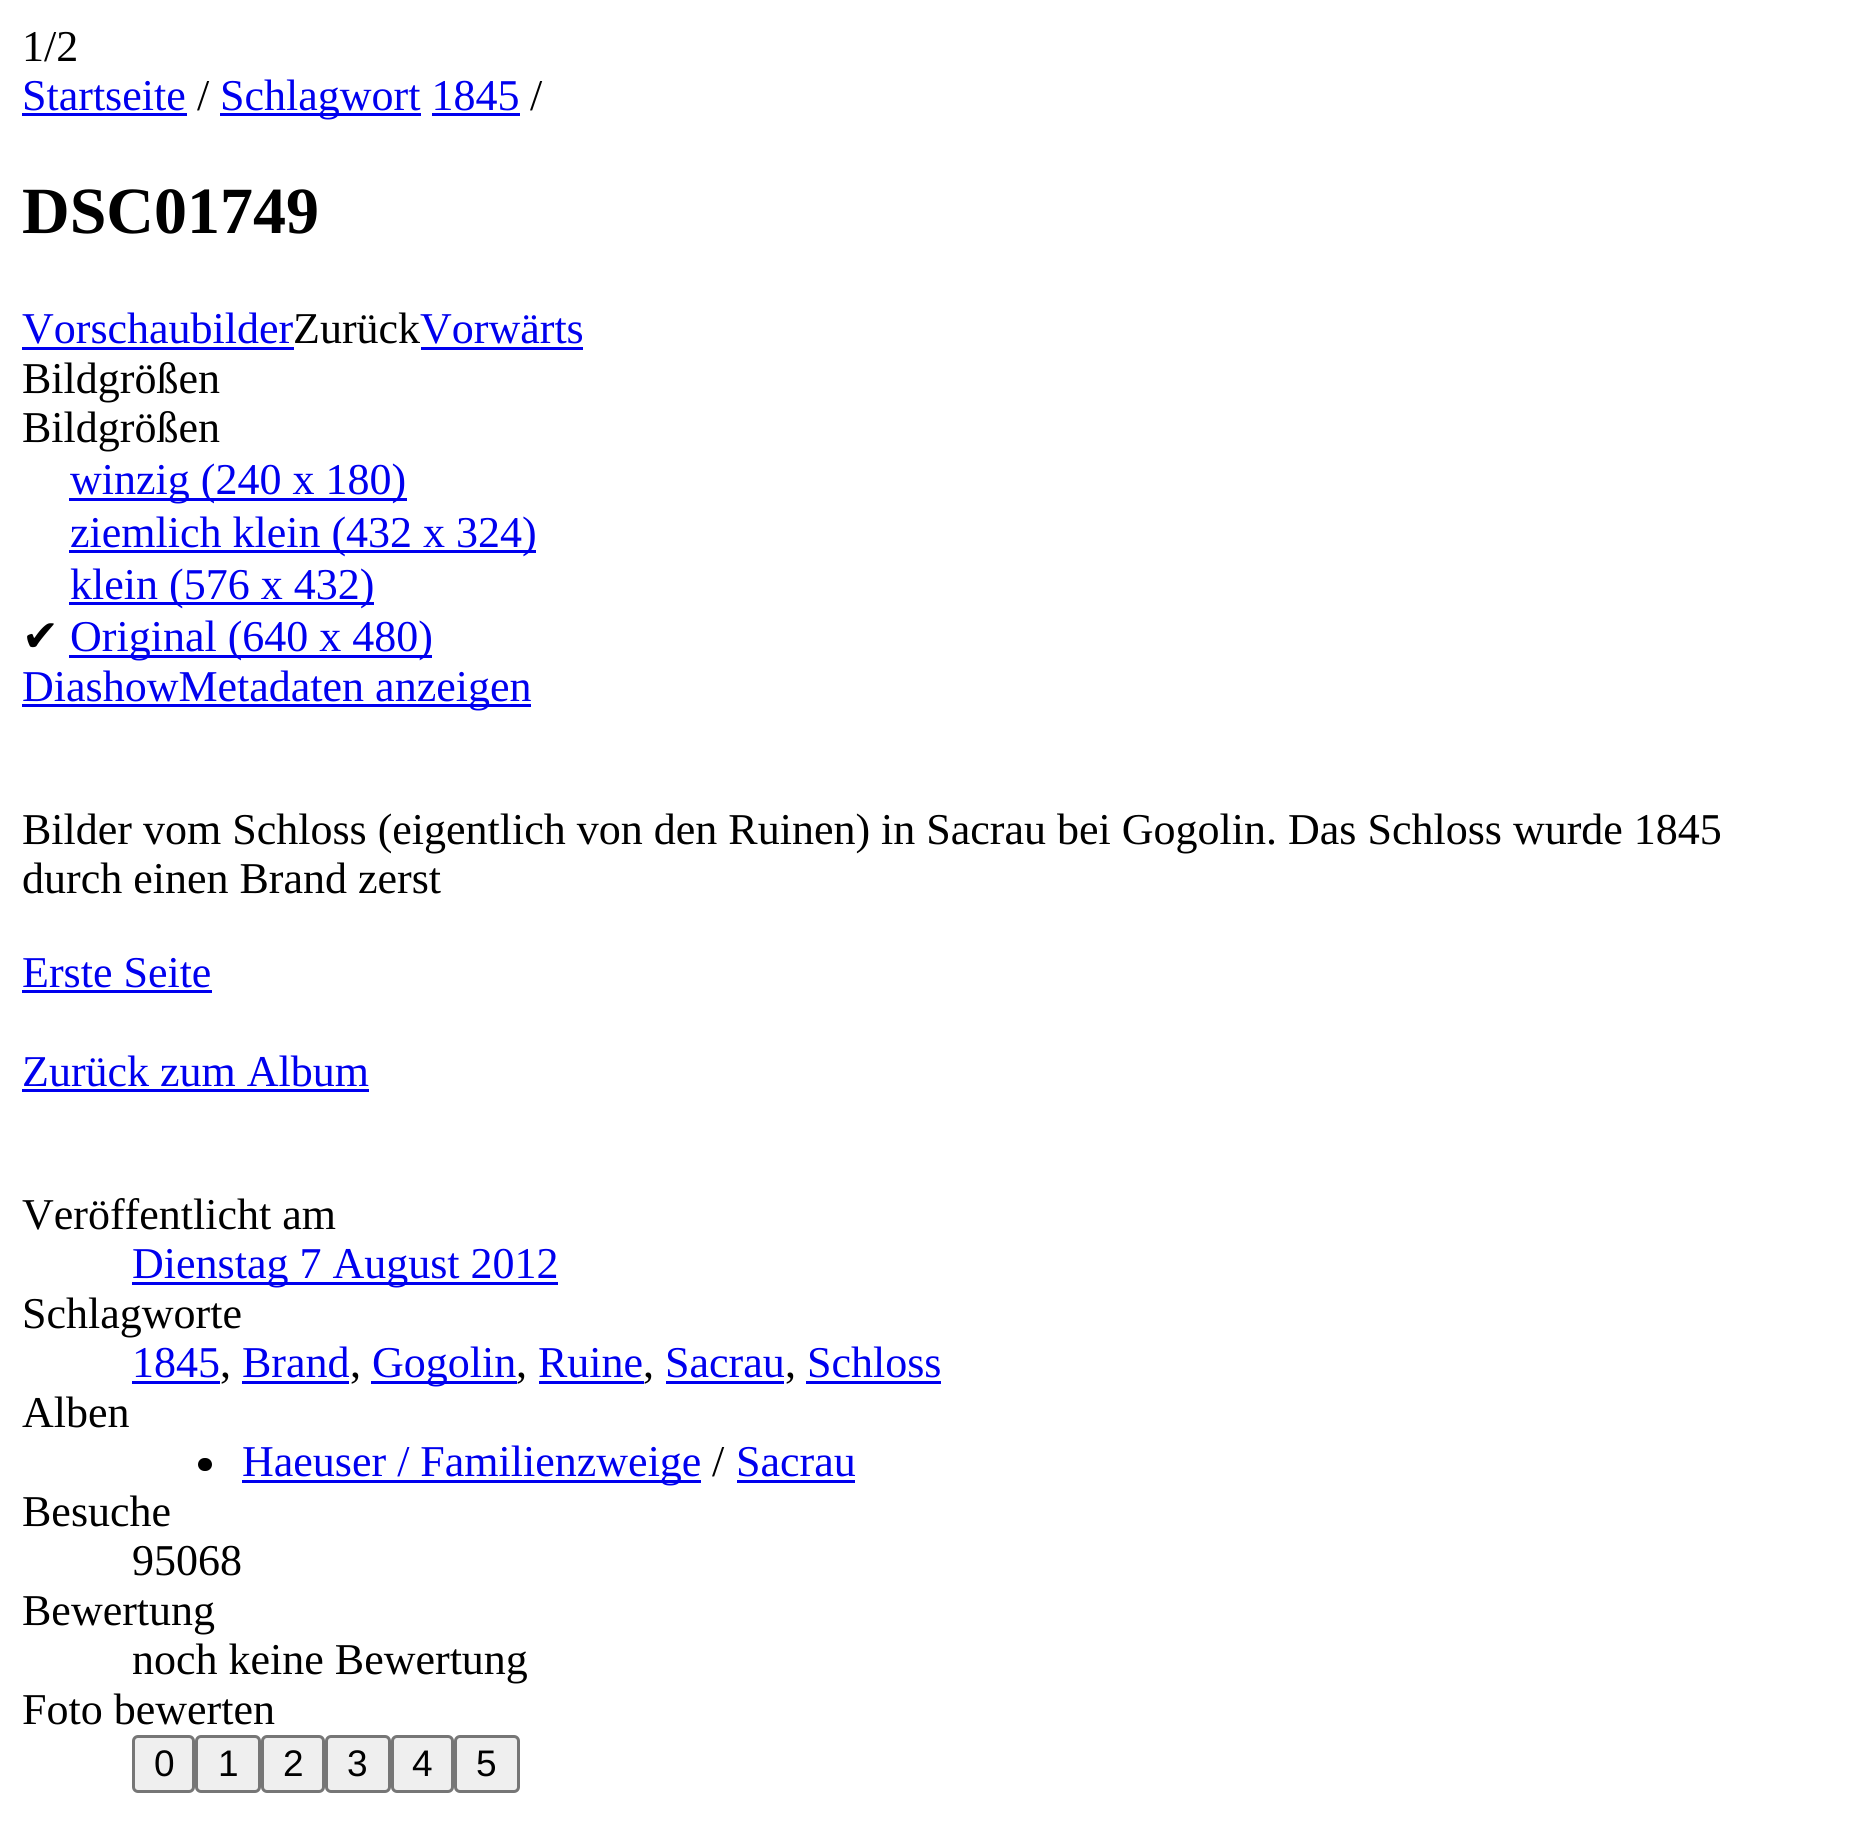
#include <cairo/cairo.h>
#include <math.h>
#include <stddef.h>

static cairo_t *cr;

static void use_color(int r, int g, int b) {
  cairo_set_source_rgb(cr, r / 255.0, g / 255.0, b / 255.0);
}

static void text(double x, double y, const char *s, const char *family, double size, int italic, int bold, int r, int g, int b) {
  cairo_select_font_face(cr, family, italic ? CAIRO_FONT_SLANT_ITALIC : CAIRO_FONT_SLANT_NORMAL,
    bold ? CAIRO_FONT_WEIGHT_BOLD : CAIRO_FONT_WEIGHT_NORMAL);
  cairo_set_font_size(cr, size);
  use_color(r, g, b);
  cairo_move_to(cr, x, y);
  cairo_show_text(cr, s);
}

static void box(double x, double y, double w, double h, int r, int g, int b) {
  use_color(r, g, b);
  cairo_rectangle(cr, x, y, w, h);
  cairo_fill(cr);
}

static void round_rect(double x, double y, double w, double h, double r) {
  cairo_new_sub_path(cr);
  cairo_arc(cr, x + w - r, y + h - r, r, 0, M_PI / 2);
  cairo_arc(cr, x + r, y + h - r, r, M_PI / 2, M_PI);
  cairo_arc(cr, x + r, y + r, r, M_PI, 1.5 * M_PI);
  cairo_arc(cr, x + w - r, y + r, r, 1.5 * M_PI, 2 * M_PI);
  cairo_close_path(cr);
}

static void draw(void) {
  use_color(255, 255, 255);
  cairo_paint(cr);
  box(22, 113, 165, 3, 0, 0, 238);
  box(220, 113, 201, 3, 0, 0, 238);
  box(432, 113, 88, 3, 0, 0, 238);
  box(22, 347, 272, 3, 0, 0, 238);
  box(421, 347, 162, 3, 0, 0, 238);
  box(69, 498, 338, 3, 0, 0, 238);
  box(69, 550, 467, 3, 0, 0, 238);
  box(69, 602, 305, 3, 0, 0, 238);
  box(69, 655, 363, 3, 0, 0, 238);
  box(22, 704, 509, 3, 0, 0, 238);
  box(22, 990, 190, 3, 0, 0, 238);
  box(22, 1089, 347, 3, 0, 0, 238);
  box(132, 1282, 426, 3, 0, 0, 238);
  box(132, 1381, 88, 3, 0, 0, 238);
  box(242, 1381, 107, 3, 0, 0, 238);
  box(371, 1381, 146, 3, 0, 0, 238);
  box(539, 1381, 105, 3, 0, 0, 238);
  box(666, 1381, 118, 3, 0, 0, 238);
  box(806, 1381, 135, 3, 0, 0, 238);
  use_color(0, 0, 0);
  round_rect(198, 1458, 14, 13, 6.5);
  cairo_fill(cr);
  box(242, 1480, 459, 3, 0, 0, 238);
  box(737, 1480, 118, 3, 0, 0, 238);
  use_color(239, 239, 239);
  round_rect(133.5, 1736.5, 60, 55, 4.5);
  cairo_fill_preserve(cr);
  use_color(118, 118, 118);
  cairo_set_line_width(cr, 3);
  cairo_stroke(cr);
  use_color(239, 239, 239);
  round_rect(196.5, 1736.5, 63, 55, 4.5);
  cairo_fill_preserve(cr);
  use_color(118, 118, 118);
  cairo_stroke(cr);
  use_color(239, 239, 239);
  round_rect(262.5, 1736.5, 61, 55, 4.5);
  cairo_fill_preserve(cr);
  use_color(118, 118, 118);
  cairo_stroke(cr);
  use_color(239, 239, 239);
  round_rect(326.5, 1736.5, 63, 55, 4.5);
  cairo_fill_preserve(cr);
  use_color(118, 118, 118);
  cairo_stroke(cr);
  use_color(239, 239, 239);
  round_rect(392.5, 1736.5, 60, 55, 4.5);
  cairo_fill_preserve(cr);
  use_color(118, 118, 118);
  cairo_stroke(cr);
  use_color(239, 239, 239);
  round_rect(455.5, 1736.5, 63, 55, 4.5);
  cairo_fill_preserve(cr);
  use_color(118, 118, 118);
  cairo_stroke(cr);
  text(22, 61, "1/2", "Liberation Serif", 44, 0, 0, 0, 0, 0);
  text(22, 110, "Startseite", "Liberation Serif", 44, 0, 0, 0, 0, 238);
  text(197, 110, "/", "Liberation Serif", 44, 0, 0, 0, 0, 0);
  text(220, 110, "Schlagwort 1845", "Liberation Serif", 44, 0, 0, 0, 0, 238);
  text(530, 110, "/", "Liberation Serif", 44, 0, 0, 0, 0, 0);
  text(22, 233, "DSC01749", "Liberation Serif", 66, 0, 1, 0, 0, 0);
  text(22, 343, "Vorschaubilder", "Liberation Serif", 44, 0, 0, 0, 0, 238);
  text(293, 343, "Zurück", "Liberation Serif", 44, 0, 0, 0, 0, 0);
  text(420, 343, "Vorwärts", "Liberation Serif", 44, 0, 0, 0, 0, 238);
  text(22, 393, "Bildgrößen", "Liberation Serif", 44, 0, 0, 0, 0, 0);
  text(22, 442, "Bildgrößen", "Liberation Serif", 44, 0, 0, 0, 0, 0);
  text(70, 494, "winzig (240 x 180)", "Liberation Serif", 44, 0, 0, 0, 0, 238);
  text(70, 547, "ziemlich klein (432 x 324)", "Liberation Serif", 44, 0, 0, 0, 0, 238);
  text(70, 599, "klein (576 x 432)", "Liberation Serif", 44, 0, 0, 0, 0, 238);
  text(22, 651, "✔", "DejaVu Sans", 44, 0, 0, 0, 0, 0);
  text(70, 651, "Original (640 x 480)", "Liberation Serif", 44, 0, 0, 0, 0, 238);
  text(22, 701, "DiashowMetadaten anzeigen", "Liberation Serif", 44, 0, 0, 0, 0, 238);
  text(22, 844, "Bilder vom Schloss (eigentlich von den Ruinen) in Sacrau bei Gogolin. Das Schloss wurde 1845", "Liberation Serif", 44, 0, 0, 0, 0, 0);
  text(22, 893, "durch einen Brand zerst", "Liberation Serif", 44, 0, 0, 0, 0, 0);
  text(22, 987, "Erste Seite", "Liberation Serif", 44, 0, 0, 0, 0, 238);
  text(22, 1086, "Zurück zum Album", "Liberation Serif", 44, 0, 0, 0, 0, 238);
  text(22, 1229, "Veröffentlicht am", "Liberation Serif", 44, 0, 0, 0, 0, 0);
  text(132, 1278, "Dienstag 7 August 2012", "Liberation Serif", 44, 0, 0, 0, 0, 238);
  text(22, 1328, "Schlagworte", "Liberation Serif", 44, 0, 0, 0, 0, 0);
  text(132, 1377, "1845", "Liberation Serif", 44, 0, 0, 0, 0, 238);
  text(220, 1377, ",", "Liberation Serif", 44, 0, 0, 0, 0, 0);
  text(242, 1377, "Brand", "Liberation Serif", 44, 0, 0, 0, 0, 238);
  text(350, 1377, ",", "Liberation Serif", 44, 0, 0, 0, 0, 0);
  text(372, 1377, "Gogolin", "Liberation Serif", 44, 0, 0, 0, 0, 238);
  text(516, 1377, ",", "Liberation Serif", 44, 0, 0, 0, 0, 0);
  text(538, 1377, "Ruine", "Liberation Serif", 44, 0, 0, 0, 0, 238);
  text(643, 1377, ",", "Liberation Serif", 44, 0, 0, 0, 0, 0);
  text(665, 1377, "Sacrau", "Liberation Serif", 44, 0, 0, 0, 0, 238);
  text(785, 1377, ",", "Liberation Serif", 44, 0, 0, 0, 0, 0);
  text(807, 1377, "Schloss", "Liberation Serif", 44, 0, 0, 0, 0, 238);
  text(22, 1427, "Alben", "Liberation Serif", 44, 0, 0, 0, 0, 0);
  text(242, 1476, "Haeuser / Familienzweige", "Liberation Serif", 44, 0, 0, 0, 0, 238);
  text(712, 1476, "/", "Liberation Serif", 44, 0, 0, 0, 0, 0);
  text(736, 1476, "Sacrau", "Liberation Serif", 44, 0, 0, 0, 0, 238);
  text(22, 1526, "Besuche", "Liberation Serif", 44, 0, 0, 0, 0, 0);
  text(132, 1575, "95068", "Liberation Serif", 44, 0, 0, 0, 0, 0);
  text(22, 1625, "Bewertung", "Liberation Serif", 44, 0, 0, 0, 0, 0);
  text(132, 1674, "noch keine Bewertung", "Liberation Serif", 44, 0, 0, 0, 0, 0);
  text(22, 1724, "Foto bewerten", "Liberation Serif", 44, 0, 0, 0, 0, 0);
  text(154, 1776, "0", "Liberation Sans", 37, 0, 0, 0, 0, 0);
  text(218, 1776, "1", "Liberation Sans", 37, 0, 0, 0, 0, 0);
  text(283, 1776, "2", "Liberation Sans", 37, 0, 0, 0, 0, 0);
  text(347, 1776, "3", "Liberation Sans", 37, 0, 0, 0, 0, 0);
  text(412, 1776, "4", "Liberation Sans", 37, 0, 0, 0, 0, 0);
  text(476, 1776, "5", "Liberation Sans", 37, 0, 0, 0, 0, 0);
}

int main(void) {
  cairo_surface_t *surface = cairo_image_surface_create(CAIRO_FORMAT_RGB24, 1851, 1828);
  cr = cairo_create(surface);
  cairo_font_options_t *options = cairo_font_options_create();
  cairo_font_options_set_hint_metrics(options, CAIRO_HINT_METRICS_OFF);
  cairo_font_options_set_hint_style(options, CAIRO_HINT_STYLE_NONE);
  cairo_set_font_options(cr, options);
  cairo_set_miter_limit(cr, 4);
  draw();
  cairo_surface_write_to_png(surface, "out.png");
  cairo_font_options_destroy(options);
  cairo_destroy(cr);
  cairo_surface_destroy(surface);
  return 0;
}
